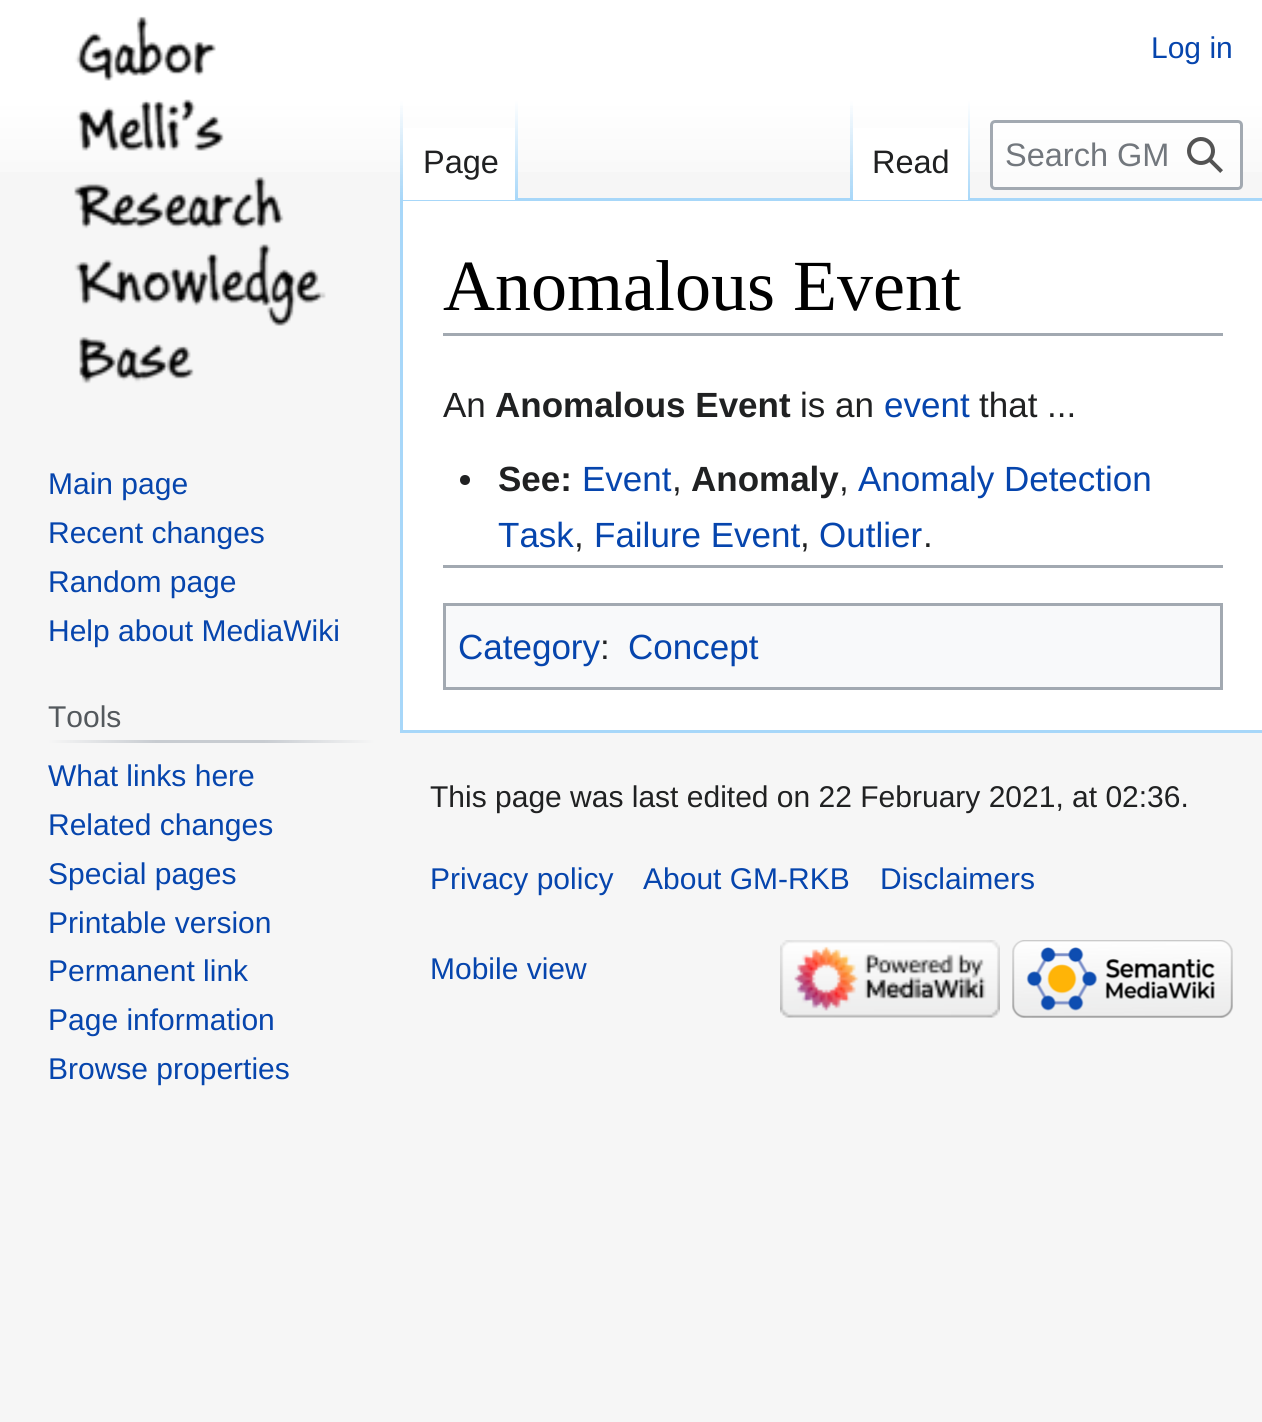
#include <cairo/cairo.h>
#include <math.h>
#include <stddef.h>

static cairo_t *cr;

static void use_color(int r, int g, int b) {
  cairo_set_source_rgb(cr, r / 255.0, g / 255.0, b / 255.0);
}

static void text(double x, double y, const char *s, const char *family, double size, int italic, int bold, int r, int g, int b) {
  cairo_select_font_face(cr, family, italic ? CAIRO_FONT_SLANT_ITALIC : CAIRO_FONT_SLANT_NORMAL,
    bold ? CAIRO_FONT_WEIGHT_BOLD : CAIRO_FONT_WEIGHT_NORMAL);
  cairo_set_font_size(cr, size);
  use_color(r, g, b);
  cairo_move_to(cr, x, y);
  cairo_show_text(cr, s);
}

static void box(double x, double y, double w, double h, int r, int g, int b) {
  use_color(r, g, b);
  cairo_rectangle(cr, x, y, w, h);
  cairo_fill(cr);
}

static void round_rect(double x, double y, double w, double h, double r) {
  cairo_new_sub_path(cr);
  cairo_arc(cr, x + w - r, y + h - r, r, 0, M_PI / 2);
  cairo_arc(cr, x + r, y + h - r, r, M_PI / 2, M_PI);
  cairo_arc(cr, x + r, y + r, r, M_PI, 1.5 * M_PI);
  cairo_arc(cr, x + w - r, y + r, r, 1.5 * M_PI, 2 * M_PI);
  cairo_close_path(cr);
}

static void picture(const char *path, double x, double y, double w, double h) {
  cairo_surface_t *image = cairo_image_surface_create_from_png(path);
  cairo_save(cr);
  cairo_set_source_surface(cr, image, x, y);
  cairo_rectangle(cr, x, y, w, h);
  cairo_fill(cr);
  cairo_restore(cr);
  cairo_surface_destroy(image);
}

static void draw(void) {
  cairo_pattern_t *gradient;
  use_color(246, 246, 246);
  cairo_paint(cr);
  gradient = cairo_pattern_create_linear(631, 0, 631, 200);
  cairo_pattern_add_color_stop_rgba(gradient, 0.5, 1, 1, 1, 1);
  cairo_pattern_add_color_stop_rgba(gradient, 1, 0.965, 0.965, 0.965, 1);
  cairo_set_source(cr, gradient);
  cairo_pattern_destroy(gradient);
  cairo_rectangle(cr, 0, 0, 1262, 172);
  cairo_fill(cr);
  box(400, 198, 862, 3, 167, 215, 249);
  box(400, 730, 862, 3, 167, 215, 249);
  box(400, 198, 3, 535, 167, 215, 249);
  gradient = cairo_pattern_create_linear(401, 100, 401, 200);
  cairo_pattern_add_color_stop_rgba(gradient, 0, 0.655, 0.843, 0.976, 0);
  cairo_pattern_add_color_stop_rgba(gradient, 1, 0.655, 0.843, 0.976, 1);
  cairo_set_source(cr, gradient);
  cairo_pattern_destroy(gradient);
  cairo_rectangle(cr, 400, 100, 3, 100);
  cairo_fill(cr);
  box(403, 128, 112, 72, 255, 255, 255);
  gradient = cairo_pattern_create_linear(516, 100, 516, 200);
  cairo_pattern_add_color_stop_rgba(gradient, 0, 1, 1, 1, 1);
  cairo_pattern_add_color_stop_rgba(gradient, 1, 0.655, 0.843, 0.976, 1);
  cairo_set_source(cr, gradient);
  cairo_pattern_destroy(gradient);
  cairo_rectangle(cr, 515, 100, 3, 100);
  cairo_fill(cr);
  gradient = cairo_pattern_create_linear(851, 100, 851, 200);
  cairo_pattern_add_color_stop_rgba(gradient, 0, 0.655, 0.843, 0.976, 0);
  cairo_pattern_add_color_stop_rgba(gradient, 1, 0.655, 0.843, 0.976, 1);
  cairo_set_source(cr, gradient);
  cairo_pattern_destroy(gradient);
  cairo_rectangle(cr, 850, 100, 3, 100);
  cairo_fill(cr);
  box(853, 128, 115, 72, 255, 255, 255);
  gradient = cairo_pattern_create_linear(969, 100, 969, 200);
  cairo_pattern_add_color_stop_rgba(gradient, 0, 1, 1, 1, 1);
  cairo_pattern_add_color_stop_rgba(gradient, 1, 0.655, 0.843, 0.976, 1);
  cairo_set_source(cr, gradient);
  cairo_pattern_destroy(gradient);
  cairo_rectangle(cr, 968, 100, 2, 100);
  cairo_fill(cr);
  cairo_set_source_rgba(cr, 1, 1, 1, 0.5);
  round_rect(991.5, 121.5, 250, 67, 3.5);
  cairo_fill_preserve(cr);
  use_color(162, 169, 177);
  cairo_set_line_width(cr, 3);
  cairo_stroke(cr);
  picture("img_01.png", 1187, 137, 36, 36);
  picture("img_02.png", 74, 16, 252, 368);
  gradient = cairo_pattern_create_linear(48, 741, 375, 741);
  cairo_pattern_add_color_stop_rgba(gradient, 0, 0.965, 0.965, 0.965, 1);
  cairo_pattern_add_color_stop_rgba(gradient, 0.33, 0.784, 0.8, 0.82, 1);
  cairo_pattern_add_color_stop_rgba(gradient, 0.66, 0.784, 0.8, 0.82, 1);
  cairo_pattern_add_color_stop_rgba(gradient, 1, 0.965, 0.965, 0.965, 1);
  cairo_set_source(cr, gradient);
  cairo_pattern_destroy(gradient);
  cairo_rectangle(cr, 48, 740, 327, 3);
  cairo_fill(cr);
  box(403, 201, 859, 529, 255, 255, 255);
  box(443, 333, 780, 3, 162, 169, 177);
  use_color(32, 33, 34);
  cairo_arc(cr, 465, 480, 5, 0, 2 * M_PI);
  cairo_fill(cr);
  box(443, 565, 780, 3, 162, 169, 177);
  use_color(248, 249, 250);
  cairo_rectangle(cr, 444.5, 604.5, 777, 84);
  cairo_fill_preserve(cr);
  use_color(162, 169, 177);
  cairo_stroke(cr);
  picture("img_03.png", 780, 940, 220, 78);
  picture("img_04.png", 1012, 940, 221, 78);
  text(1151, 58, "Log in", "Liberation Sans", 30, 0, 0, 6, 69, 173);
  text(423, 173, "Page", "Liberation Sans", 32.5, 0, 0, 32, 33, 34);
  text(872, 173, "Read", "Liberation Sans", 32.5, 0, 0, 32, 33, 34);
  text(1005, 166, "Search GM", "Liberation Sans", 32.5, 0, 0, 114, 119, 125);
  text(48, 494, "Main page", "Liberation Sans", 30, 0, 0, 6, 69, 173);
  text(48, 543, "Recent changes", "Liberation Sans", 30, 0, 0, 6, 69, 173);
  text(48, 592, "Random page", "Liberation Sans", 30, 0, 0, 6, 69, 173);
  text(48, 641, "Help about MediaWiki", "Liberation Sans", 30, 0, 0, 6, 69, 173);
  text(48, 727, "Tools", "Liberation Sans", 30, 0, 0, 84, 89, 93);
  text(48, 786, "What links here", "Liberation Sans", 30, 0, 0, 6, 69, 173);
  text(48, 835, "Related changes", "Liberation Sans", 30, 0, 0, 6, 69, 173);
  text(48, 884, "Special pages", "Liberation Sans", 30, 0, 0, 6, 69, 173);
  text(48, 933, "Printable version", "Liberation Sans", 30, 0, 0, 6, 69, 173);
  text(48, 981, "Permanent link", "Liberation Sans", 30, 0, 0, 6, 69, 173);
  text(48, 1030, "Page information", "Liberation Sans", 30, 0, 0, 6, 69, 173);
  text(48, 1079, "Browse properties", "Liberation Sans", 30, 0, 0, 6, 69, 173);
  text(443, 310, "Anomalous Event", "Liberation Serif", 72, 0, 0, 0, 0, 0);
  text(443, 417, "An", "Liberation Sans", 35, 0, 0, 32, 33, 34);
  text(495, 417, "Anomalous Event", "Liberation Sans", 35, 0, 1, 32, 33, 34);
  text(800, 417, "is an", "Liberation Sans", 35, 0, 0, 32, 33, 34);
  text(884, 417, "event", "Liberation Sans", 35, 0, 0, 6, 69, 173);
  text(979, 417, "that ...", "Liberation Sans", 35, 0, 0, 32, 33, 34);
  text(498, 491, "See:", "Liberation Sans", 35, 0, 1, 32, 33, 34);
  text(582, 491, "Event", "Liberation Sans", 35, 0, 0, 6, 69, 173);
  text(691, 491, "Anomaly", "Liberation Sans", 35, 0, 1, 32, 33, 34);
  text(858, 491, "Anomaly Detection", "Liberation Sans", 35, 0, 0, 6, 69, 173);
  text(672, 491, ",", "Liberation Sans", 35, 0, 0, 32, 33, 34);
  text(839, 491, ",", "Liberation Sans", 35, 0, 0, 32, 33, 34);
  text(498, 547, "Task", "Liberation Sans", 35, 0, 0, 6, 69, 173);
  text(574, 547, ",", "Liberation Sans", 35, 0, 0, 32, 33, 34);
  text(594, 547, "Failure Event", "Liberation Sans", 35, 0, 0, 6, 69, 173);
  text(800, 547, ",", "Liberation Sans", 35, 0, 0, 32, 33, 34);
  text(819, 547, "Outlier", "Liberation Sans", 35, 0, 0, 6, 69, 173);
  text(923, 547, ".", "Liberation Sans", 35, 0, 0, 32, 33, 34);
  text(458, 659, "Category", "Liberation Sans", 35, 0, 0, 6, 69, 173);
  text(600, 659, ":", "Liberation Sans", 35, 0, 0, 32, 33, 34);
  text(628, 659, "Concept", "Liberation Sans", 35, 0, 0, 6, 69, 173);
  text(430, 807, "This page was last edited on 22 February 2021, at 02:36.", "Liberation Sans", 30, 0, 0, 32, 33, 34);
  text(430, 889, "Privacy policy", "Liberation Sans", 30, 0, 0, 6, 69, 173);
  text(643, 889, "About GM-RKB", "Liberation Sans", 30, 0, 0, 6, 69, 173);
  text(880, 889, "Disclaimers", "Liberation Sans", 30, 0, 0, 6, 69, 173);
  text(430, 979, "Mobile view", "Liberation Sans", 30, 0, 0, 6, 69, 173);
}

int main(void) {
  cairo_surface_t *surface = cairo_image_surface_create(CAIRO_FORMAT_RGB24, 1262, 1422);
  cr = cairo_create(surface);
  cairo_font_options_t *options = cairo_font_options_create();
  cairo_font_options_set_hint_metrics(options, CAIRO_HINT_METRICS_OFF);
  cairo_font_options_set_hint_style(options, CAIRO_HINT_STYLE_NONE);
  cairo_set_font_options(cr, options);
  cairo_set_miter_limit(cr, 4);
  draw();
  cairo_surface_write_to_png(surface, "out.png");
  cairo_font_options_destroy(options);
  cairo_destroy(cr);
  cairo_surface_destroy(surface);
  return 0;
}
